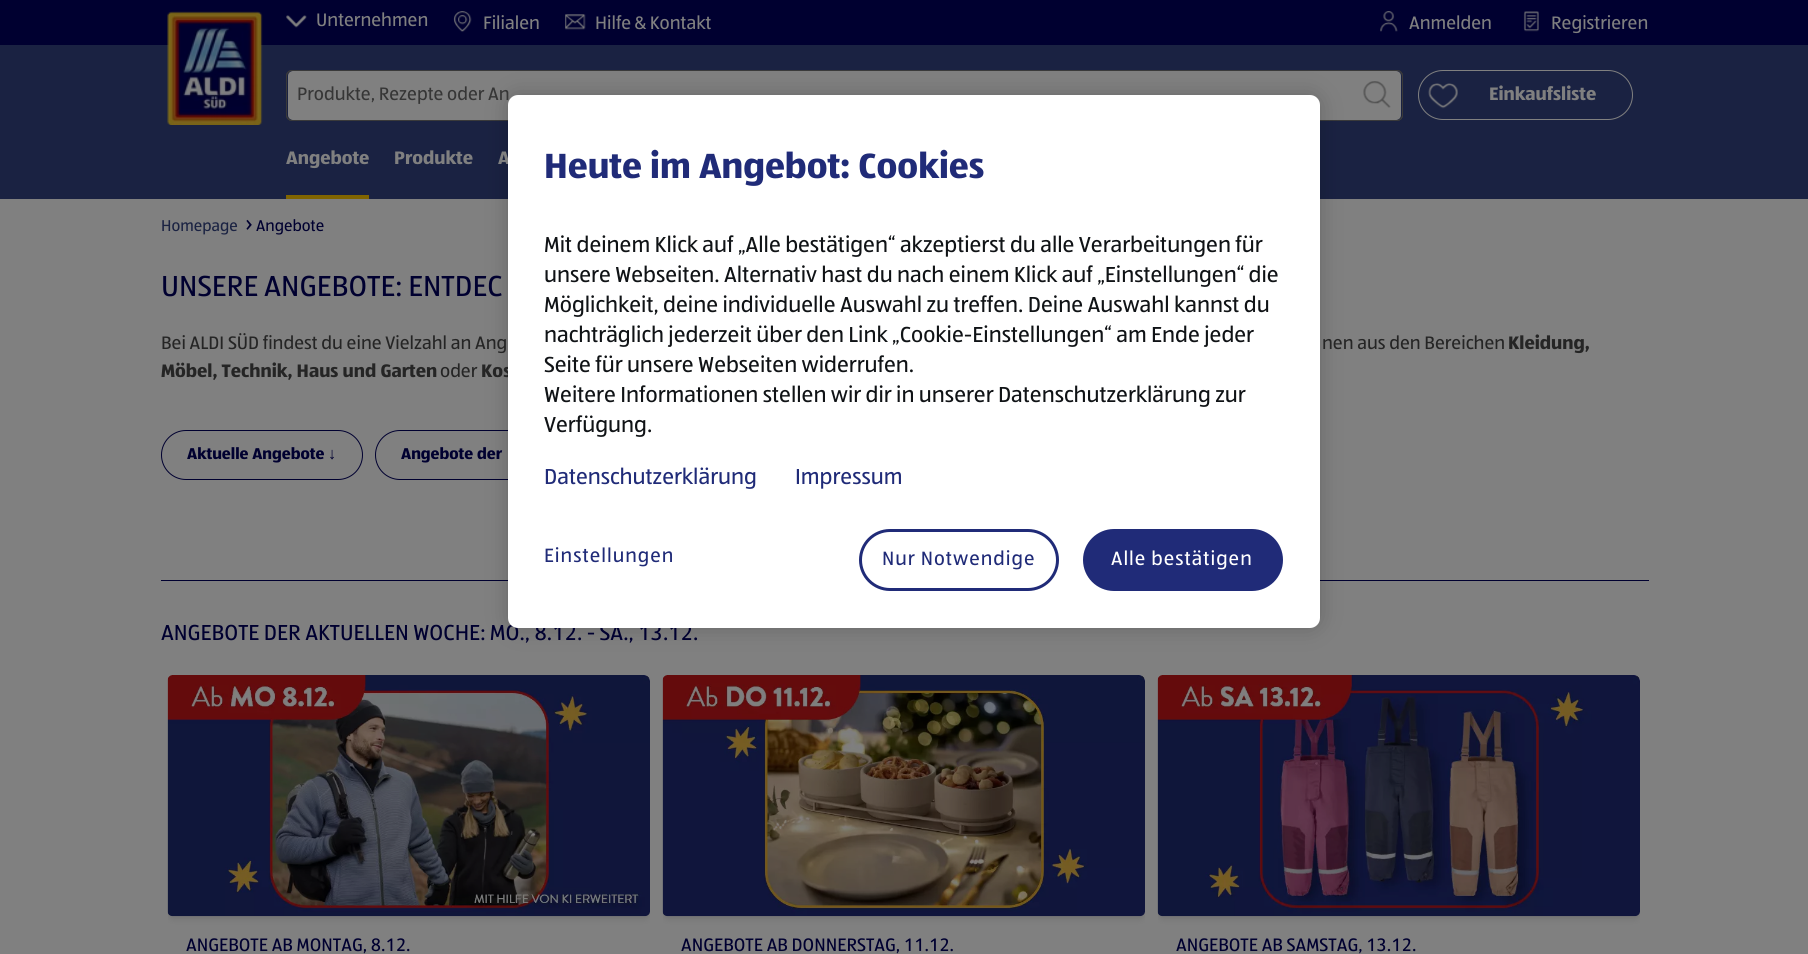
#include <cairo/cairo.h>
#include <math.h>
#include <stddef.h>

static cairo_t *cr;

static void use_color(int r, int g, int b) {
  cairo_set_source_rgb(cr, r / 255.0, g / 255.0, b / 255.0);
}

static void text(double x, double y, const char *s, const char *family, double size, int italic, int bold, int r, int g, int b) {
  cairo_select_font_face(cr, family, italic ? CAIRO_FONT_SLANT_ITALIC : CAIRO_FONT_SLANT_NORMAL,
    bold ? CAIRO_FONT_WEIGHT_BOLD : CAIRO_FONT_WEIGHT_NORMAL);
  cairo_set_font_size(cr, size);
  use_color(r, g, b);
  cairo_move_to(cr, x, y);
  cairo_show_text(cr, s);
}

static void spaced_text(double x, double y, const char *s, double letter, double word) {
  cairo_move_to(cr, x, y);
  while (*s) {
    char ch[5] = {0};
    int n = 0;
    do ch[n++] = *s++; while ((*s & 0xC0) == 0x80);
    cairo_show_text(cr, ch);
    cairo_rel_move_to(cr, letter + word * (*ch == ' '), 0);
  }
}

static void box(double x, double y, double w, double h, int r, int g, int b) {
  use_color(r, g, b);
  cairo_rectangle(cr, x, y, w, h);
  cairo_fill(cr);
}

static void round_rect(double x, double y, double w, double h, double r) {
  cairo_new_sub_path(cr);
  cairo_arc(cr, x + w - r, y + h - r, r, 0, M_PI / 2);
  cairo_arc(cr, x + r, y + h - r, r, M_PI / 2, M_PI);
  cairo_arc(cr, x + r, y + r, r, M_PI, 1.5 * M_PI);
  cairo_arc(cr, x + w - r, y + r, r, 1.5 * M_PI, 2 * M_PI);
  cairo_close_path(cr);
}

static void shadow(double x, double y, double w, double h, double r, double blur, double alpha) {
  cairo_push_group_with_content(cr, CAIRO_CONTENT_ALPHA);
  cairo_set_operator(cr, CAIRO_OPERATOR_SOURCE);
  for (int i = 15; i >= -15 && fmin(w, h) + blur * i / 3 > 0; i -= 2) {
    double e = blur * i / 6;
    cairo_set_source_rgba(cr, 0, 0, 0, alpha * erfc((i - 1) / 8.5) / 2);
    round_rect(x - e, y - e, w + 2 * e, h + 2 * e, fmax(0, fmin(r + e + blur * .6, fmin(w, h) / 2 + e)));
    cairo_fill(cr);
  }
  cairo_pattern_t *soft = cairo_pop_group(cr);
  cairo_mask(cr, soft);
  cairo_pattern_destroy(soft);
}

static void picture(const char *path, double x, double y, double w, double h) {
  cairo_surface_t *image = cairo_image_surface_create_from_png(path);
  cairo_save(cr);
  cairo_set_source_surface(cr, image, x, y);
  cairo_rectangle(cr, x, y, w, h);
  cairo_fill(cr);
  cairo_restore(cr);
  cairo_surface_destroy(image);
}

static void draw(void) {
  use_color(128, 128, 128);
  cairo_paint(cr);
  box(0, 0, 1808, 45, 0, 0, 48);
  box(0, 45, 1808, 154, 26, 34, 66);
  picture("img_01.png", 167, 11, 96, 114);
  picture("img_02.png", 286, 15, 21, 13);
  picture("img_03.png", 453, 11, 19, 21);
  picture("img_04.png", 565, 14, 21, 16);
  picture("img_05.png", 1380, 11, 18, 21);
  picture("img_06.png", 1523, 11, 16, 21);
  use_color(128, 128, 128);
  round_rect(288, 71, 1113, 49, 5);
  cairo_fill(cr);
  round_rect(286.5, 70.5, 1116, 50, 5.5);
  use_color(58, 58, 58);
  cairo_set_line_width(cr, 1);
  cairo_stroke(cr);
  round_rect(286.5, 70.5, 1116, 50, 5.5);
  cairo_stroke(cr);
  picture("img_07.png", 1363, 81, 28, 27);
  round_rect(1418.5, 70.5, 214, 49, 24.5);
  use_color(128, 128, 128);
  cairo_stroke(cr);
  picture("img_08.png", 1428, 83, 30, 26);
  box(286, 195, 83, 4, 128, 100, 0);
  round_rect(375.5, 430.5, 285, 49, 24.5);
  use_color(0, 0, 48);
  cairo_stroke(cr);
  box(161, 580, 1488, 1, 0, 0, 48);
  use_color(0, 0, 0);
  shadow(508, 95, 812, 533, 10, 11, 0.2);
  round_rect(161.5, 430.5, 201, 49, 24.5);
  use_color(0, 0, 48);
  cairo_stroke(cr);
  cairo_save(cr);
  round_rect(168, 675, 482, 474, 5);
  cairo_clip(cr);
  use_color(0, 0, 0);
  shadow(168, 678, 482, 241, 5, 3, 0.1);
  cairo_restore(cr);
  use_color(128, 128, 128);
  round_rect(168, 675, 482, 241, 5);
  cairo_fill(cr);
  picture("img_09.png", 167, 675, 483, 242);
  cairo_save(cr);
  round_rect(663, 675, 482, 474, 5);
  cairo_clip(cr);
  use_color(0, 0, 0);
  shadow(663, 678, 482, 241, 5, 3, 0.1);
  cairo_restore(cr);
  round_rect(663, 675, 482, 241, 5);
  cairo_fill(cr);
  picture("img_10.png", 662, 675, 483, 242);
  cairo_save(cr);
  round_rect(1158, 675, 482, 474, 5);
  cairo_clip(cr);
  use_color(0, 0, 0);
  shadow(1158, 678, 482, 241, 5, 3, 0.1);
  cairo_restore(cr);
  round_rect(1158, 675, 482, 241, 5);
  cairo_fill(cr);
  picture("img_11.png", 1157, 675, 483, 242);
  text(316, 26, "Unternehmen", "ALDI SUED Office", 18.75, 0, 0, 128, 128, 128);
  text(483, 29, "Filialen", "ALDI SUED Office", 18.75, 0, 0, 128, 128, 128);
  text(595, 29, "Hilfe & Kontakt", "ALDI SUED Office", 18.75, 0, 0, 128, 128, 128);
  text(1409, 29, "Anmelden", "ALDI SUED Office", 18.75, 0, 0, 128, 128, 128);
  text(1551, 29, "Registrieren", "ALDI SUED Office", 18.75, 0, 0, 128, 128, 128);
  text(297, 100, "Produkte, Rezepte oder An", "ALDI SUED Office", 18.75, 0, 0, 54, 54, 54);
  text(1489, 100, "Einkaufsliste", "ALDI SUED Office", 18.75, 0, 1, 128, 128, 128);
  text(286, 164, "Angebote", "ALDI SUED Office", 18.75, 0, 1, 128, 128, 128);
  text(394, 164, "Produkte", "ALDI SUED Office", 18.75, 0, 1, 128, 128, 128);
  text(498, 164, "A", "ALDI SUED Office", 18.75, 0, 1, 128, 128, 128);
  text(161, 231, "Homepage", "ALDI SUED Office", 16.25, 0, 0, 26, 34, 66);
  text(245, 232, "›", "ALDI SUED Office", 25, 0, 0, 0, 0, 48);
  text(256, 231, "Angebote", "ALDI SUED Office", 16.25, 0, 0, 0, 0, 48);
  text(161, 296, "UNSERE ANGEBOTE: ENTDEC", "ALDI SUED Office", 30, 0, 0, 0, 0, 48);
  text(161, 349, "Bei ALDI SÜD findest du eine Vielzahl an Ang", "ALDI SUED Office", 18.75, 0, 0, 37, 37, 37);
  text(1322, 349, "nen aus den Bereichen", "ALDI SUED Office", 18.75, 0, 0, 37, 37, 37);
  text(1508, 349, "Kleidung,", "ALDI SUED Office", 18.75, 0, 1, 37, 37, 37);
  text(161, 377, "Möbel, Technik, Haus und Garten", "ALDI SUED Office", 18.75, 0, 1, 37, 37, 37);
  text(440, 377, "oder", "ALDI SUED Office", 18.75, 0, 0, 37, 37, 37);
  text(481, 377, "Kos", "ALDI SUED Office", 18.75, 0, 1, 37, 37, 37);
  text(187, 459, "Aktuelle Angebote", "ALDI SUED Office", 16.25, 0, 1, 0, 0, 48);
  text(328, 459, "↓", "Liberation Sans", 16.25, 0, 1, 0, 0, 48);
  text(401, 459, "Angebote der", "ALDI SUED Office", 16.25, 0, 1, 0, 0, 48);
  text(161, 640, "ANGEBOTE DER AKTUELLEN WOCHE: MO., 8.12. - SA., 13.12.", "ALDI SUED Office", 22.5, 0, 0, 0, 0, 48);
  use_color(255, 255, 255);
  round_rect(508, 95, 812, 533, 10);
  cairo_fill(cr);
  cairo_set_font_size(cr, 20);
  use_color(32, 43, 120);
  spaced_text(544, 562, "Einstellungen", 1, 0);
  round_rect(1084.5, 530.5, 197, 59, 29.5);
  cairo_fill_preserve(cr);
  cairo_set_line_width(cr, 3);
  cairo_stroke(cr);
  use_color(255, 255, 255);
  spaced_text(1111, 565, "Alle bestätigen", 1, 0);
  round_rect(860.5, 530.5, 197, 59, 29.5);
  use_color(32, 43, 120);
  cairo_stroke(cr);
  spaced_text(882, 565, "Nur Notwendige", 1, 0);
  text(795, 484, "Impressum", "ALDI SUED Office", 22.5, 0, 0, 32, 43, 120);
  text(544, 484, "Datenschutzerklärung", "ALDI SUED Office", 22.5, 0, 0, 32, 43, 120);
  text(544, 432, "Verfügung.", "ALDI SUED Office", 22.5, 0, 0, 16, 19, 22);
  text(544, 402, "Weitere Informationen stellen wir dir in unserer Datenschutzerklärung zur", "ALDI SUED Office", 22.5, 0, 0, 16, 19, 22);
  text(544, 372, "Seite für unsere Webseiten widerrufen.", "ALDI SUED Office", 22.5, 0, 0, 16, 19, 22);
  text(544, 342, "nachträglich jederzeit über den Link „Cookie-Einstellungen“ am Ende jeder", "ALDI SUED Office", 22.5, 0, 0, 16, 19, 22);
  text(544, 312, "Möglichkeit, deine individuelle Auswahl zu treffen. Deine Auswahl kannst du", "ALDI SUED Office", 22.5, 0, 0, 16, 19, 22);
  text(544, 282, "unsere Webseiten. Alternativ hast du nach einem Klick auf „Einstellungen“ die", "ALDI SUED Office", 22.5, 0, 0, 16, 19, 22);
  text(544, 252, "Mit deinem Klick auf „Alle bestätigen“ akzeptierst du alle Verarbeitungen für", "ALDI SUED Office", 22.5, 0, 0, 16, 19, 22);
  text(544, 178, "Heute im Angebot: Cookies", "ALDI SUED Office", 36.25, 0, 1, 32, 43, 120);
  text(186, 951, "ANGEBOTE AB MONTAG, 8.12.", "ALDI SUED Office", 18.75, 0, 0, 0, 0, 48);
  text(681, 951, "ANGEBOTE AB DONNERSTAG, 11.12.", "ALDI SUED Office", 18.75, 0, 0, 0, 0, 48);
  text(1176, 951, "ANGEBOTE AB SAMSTAG, 13.12.", "ALDI SUED Office", 18.75, 0, 0, 0, 0, 48);
}

int main(void) {
  cairo_surface_t *surface = cairo_image_surface_create(CAIRO_FORMAT_RGB24, 1808, 954);
  cr = cairo_create(surface);
  cairo_font_options_t *options = cairo_font_options_create();
  cairo_font_options_set_hint_metrics(options, CAIRO_HINT_METRICS_OFF);
  cairo_font_options_set_hint_style(options, CAIRO_HINT_STYLE_NONE);
  cairo_set_font_options(cr, options);
  cairo_set_miter_limit(cr, 4);
  draw();
  cairo_surface_write_to_png(surface, "out.png");
  cairo_font_options_destroy(options);
  cairo_destroy(cr);
  cairo_surface_destroy(surface);
  return 0;
}
